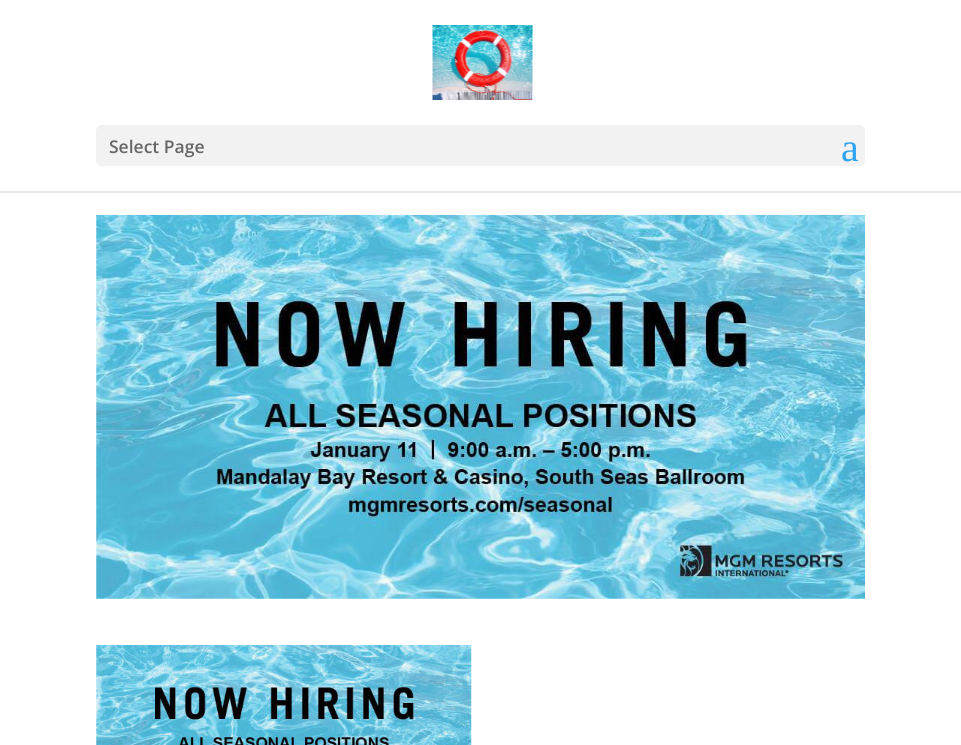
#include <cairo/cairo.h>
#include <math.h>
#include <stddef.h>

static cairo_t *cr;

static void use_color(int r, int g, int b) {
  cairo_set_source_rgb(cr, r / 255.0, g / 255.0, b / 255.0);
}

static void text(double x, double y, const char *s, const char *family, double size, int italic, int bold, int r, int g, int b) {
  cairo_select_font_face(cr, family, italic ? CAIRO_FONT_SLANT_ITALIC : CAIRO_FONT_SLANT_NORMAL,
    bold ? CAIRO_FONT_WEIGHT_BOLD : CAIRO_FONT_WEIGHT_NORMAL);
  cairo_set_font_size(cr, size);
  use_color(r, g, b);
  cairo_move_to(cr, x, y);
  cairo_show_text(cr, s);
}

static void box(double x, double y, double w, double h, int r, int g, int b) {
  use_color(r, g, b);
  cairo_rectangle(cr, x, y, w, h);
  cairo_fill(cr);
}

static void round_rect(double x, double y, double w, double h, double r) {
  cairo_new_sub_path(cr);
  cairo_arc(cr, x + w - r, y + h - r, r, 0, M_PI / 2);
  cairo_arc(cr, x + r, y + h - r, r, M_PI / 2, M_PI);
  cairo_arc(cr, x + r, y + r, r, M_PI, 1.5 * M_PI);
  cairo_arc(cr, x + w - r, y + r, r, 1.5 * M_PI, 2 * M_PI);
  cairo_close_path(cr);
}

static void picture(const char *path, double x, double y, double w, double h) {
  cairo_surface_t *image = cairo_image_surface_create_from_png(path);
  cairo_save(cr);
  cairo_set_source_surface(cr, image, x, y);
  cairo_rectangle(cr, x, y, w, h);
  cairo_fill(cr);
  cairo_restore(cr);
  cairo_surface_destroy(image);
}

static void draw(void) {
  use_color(255, 255, 255);
  cairo_paint(cr);
  box(0, 191, 961, 2, 230, 230, 230);
  picture("img_01.png", 432, 25, 101, 75);
  use_color(242, 242, 242);
  round_rect(96, 125, 769, 41, 6);
  cairo_fill(cr);
  picture("img_02.png", 96, 215, 769, 384);
  picture("img_03.png", 96, 645, 376, 100);
  text(109, 153, "Select Page", "Open Sans SemiBold", 17.5, 0, 0, 102, 102, 102);
  text(841, 161, "a", "Liberation Serif", 40, 0, 0, 46, 163, 242);
}

int main(void) {
  cairo_surface_t *surface = cairo_image_surface_create(CAIRO_FORMAT_RGB24, 961, 745);
  cr = cairo_create(surface);
  cairo_font_options_t *options = cairo_font_options_create();
  cairo_font_options_set_hint_metrics(options, CAIRO_HINT_METRICS_OFF);
  cairo_font_options_set_hint_style(options, CAIRO_HINT_STYLE_NONE);
  cairo_set_font_options(cr, options);
  cairo_set_miter_limit(cr, 4);
  draw();
  cairo_surface_write_to_png(surface, "out.png");
  cairo_font_options_destroy(options);
  cairo_destroy(cr);
  cairo_surface_destroy(surface);
  return 0;
}
